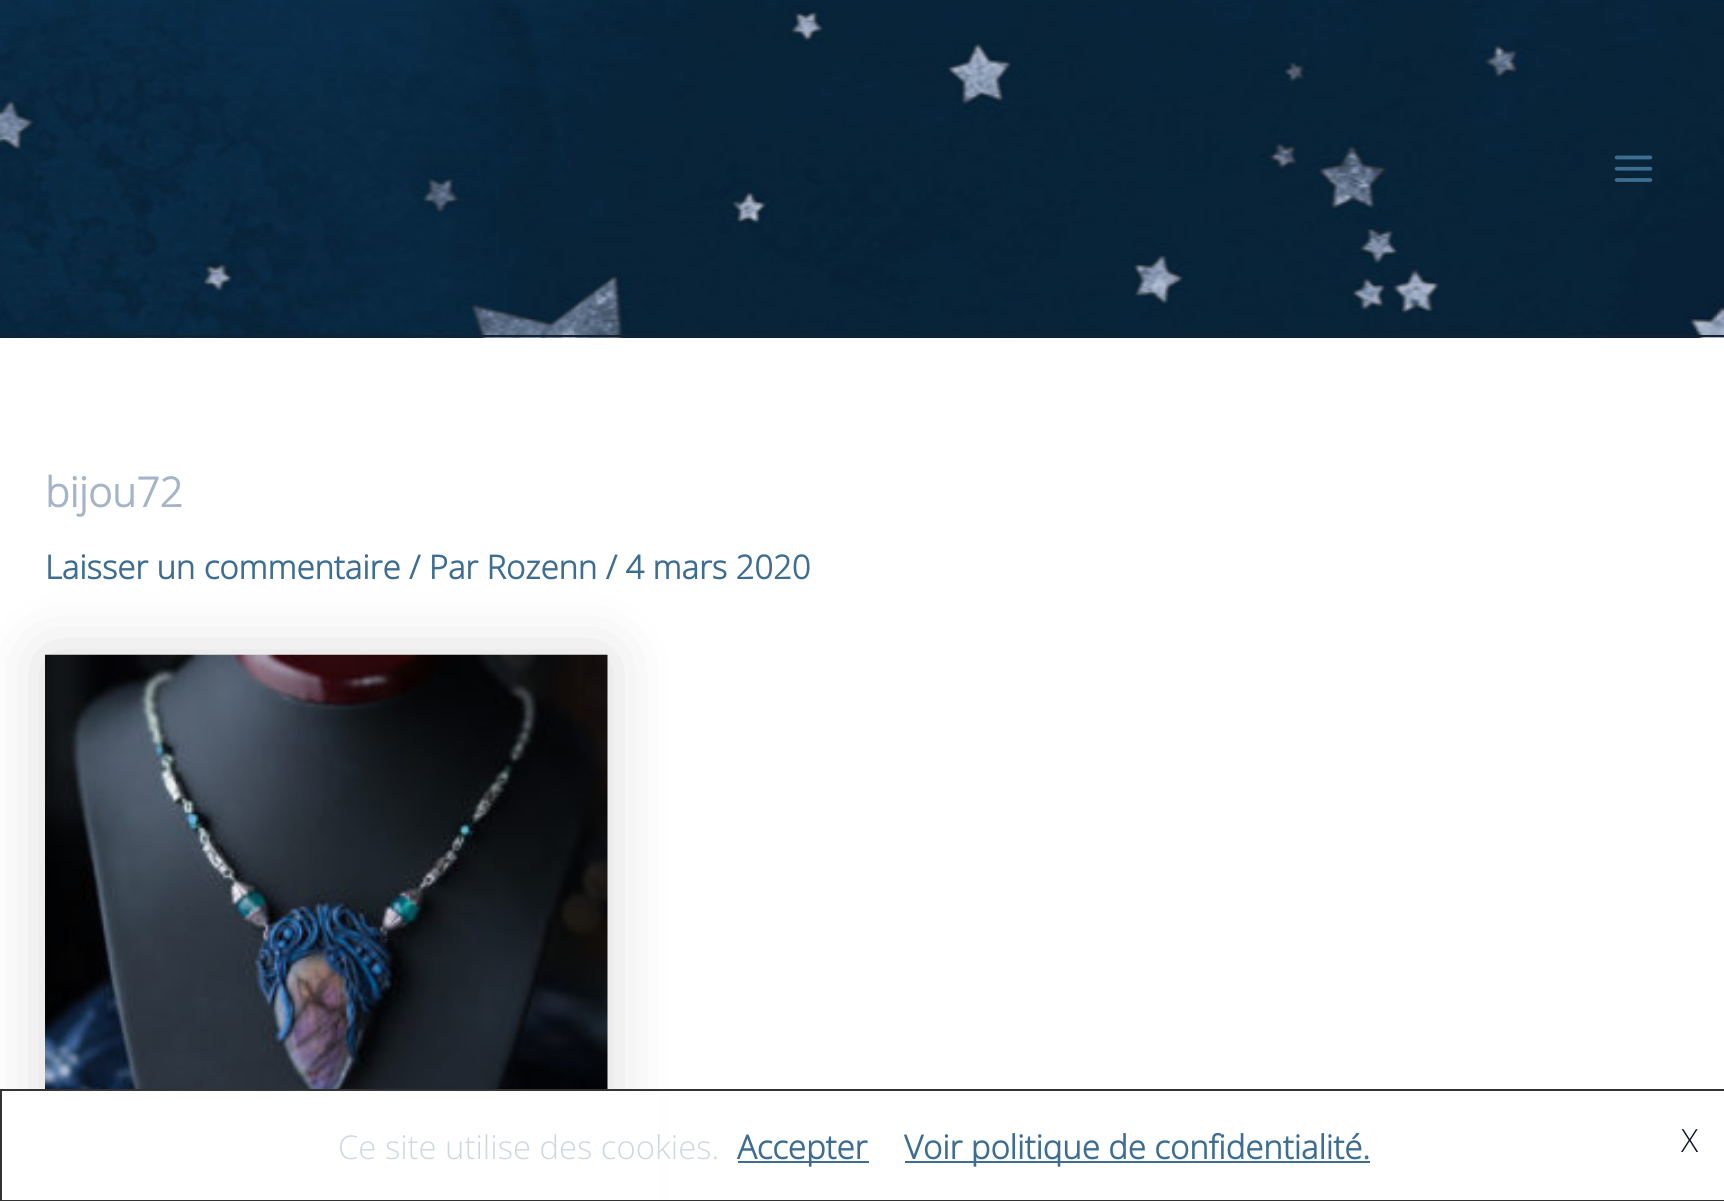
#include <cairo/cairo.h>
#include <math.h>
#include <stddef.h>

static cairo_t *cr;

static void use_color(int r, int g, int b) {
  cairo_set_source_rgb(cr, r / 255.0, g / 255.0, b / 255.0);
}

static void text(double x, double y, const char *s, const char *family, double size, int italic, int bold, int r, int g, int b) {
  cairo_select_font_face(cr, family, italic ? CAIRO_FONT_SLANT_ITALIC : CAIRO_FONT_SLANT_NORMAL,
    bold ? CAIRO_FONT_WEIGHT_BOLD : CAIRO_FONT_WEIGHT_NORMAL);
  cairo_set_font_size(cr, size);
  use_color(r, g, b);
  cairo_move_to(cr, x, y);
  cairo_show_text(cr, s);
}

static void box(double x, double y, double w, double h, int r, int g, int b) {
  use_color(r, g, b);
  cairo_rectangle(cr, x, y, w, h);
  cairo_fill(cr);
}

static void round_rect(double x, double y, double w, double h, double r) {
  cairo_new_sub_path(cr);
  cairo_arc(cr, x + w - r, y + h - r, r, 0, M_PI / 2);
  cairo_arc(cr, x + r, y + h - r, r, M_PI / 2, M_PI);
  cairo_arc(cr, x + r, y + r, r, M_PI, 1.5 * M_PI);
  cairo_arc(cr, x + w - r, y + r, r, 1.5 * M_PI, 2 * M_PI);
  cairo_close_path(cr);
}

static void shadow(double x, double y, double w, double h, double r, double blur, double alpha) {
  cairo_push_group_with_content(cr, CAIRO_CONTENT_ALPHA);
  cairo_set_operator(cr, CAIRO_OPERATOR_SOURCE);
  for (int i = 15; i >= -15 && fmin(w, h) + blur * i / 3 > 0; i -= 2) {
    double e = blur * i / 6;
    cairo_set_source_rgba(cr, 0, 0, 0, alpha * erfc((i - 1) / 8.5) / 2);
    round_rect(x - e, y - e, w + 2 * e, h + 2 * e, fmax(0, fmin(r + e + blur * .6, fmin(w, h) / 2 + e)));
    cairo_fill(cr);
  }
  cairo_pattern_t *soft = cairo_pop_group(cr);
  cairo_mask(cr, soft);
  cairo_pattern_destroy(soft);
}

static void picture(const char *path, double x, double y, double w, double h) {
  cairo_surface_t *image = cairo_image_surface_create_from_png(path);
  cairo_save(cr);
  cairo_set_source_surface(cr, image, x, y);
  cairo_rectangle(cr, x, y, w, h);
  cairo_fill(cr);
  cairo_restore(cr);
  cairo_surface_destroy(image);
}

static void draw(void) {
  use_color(255, 255, 255);
  cairo_paint(cr);
  picture("img_01.png", 0, 0, 1724, 338);
  box(0, 335, 1724, 2, 19, 33, 48);
  picture("img_02.png", 1614, 155, 39, 27);
  use_color(0, 0, 0);
  shadow(45, 655, 563, 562, 0, 34, 0.15);
  picture("img_03.png", 45, 654, 563, 435);
  box(2, 1091, 657, 109, 255, 255, 255);
  cairo_rectangle(cr, 1, 1090, 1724, 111);
  use_color(51, 51, 51);
  cairo_stroke(cr);
  box(738, 1161, 131, 2, 62, 109, 146);
  box(905, 1161, 465, 2, 62, 109, 146);
  text(45, 507, "bijou72", "Open Sans", 41, 0, 1, 165, 181, 197);
  text(45, 579, "Laisser un commentaire", "Open Sans", 32.8, 0, 1, 62, 109, 146);
  text(409, 579, "/ Par Rozenn / 4 mars 2020", "Open Sans", 32.8, 0, 1, 62, 109, 146);
  text(338, 1159, "Ce site utilise des cookies.", "Open Sans Light", 32.8, 0, 0, 206, 215, 225);
  text(737, 1159, "Accepter", "Open Sans", 32.8, 0, 1, 62, 109, 146);
  text(904, 1159, "Voir politique de confidentialité.", "Open Sans", 32.8, 0, 1, 62, 109, 146);
  text(1681, 1152, "X", "Open Sans Light", 32, 0, 0, 17, 24, 39);
}

int main(void) {
  cairo_surface_t *surface = cairo_image_surface_create(CAIRO_FORMAT_RGB24, 1724, 1201);
  cr = cairo_create(surface);
  cairo_font_options_t *options = cairo_font_options_create();
  cairo_font_options_set_hint_metrics(options, CAIRO_HINT_METRICS_OFF);
  cairo_font_options_set_hint_style(options, CAIRO_HINT_STYLE_NONE);
  cairo_set_font_options(cr, options);
  cairo_set_miter_limit(cr, 4);
  draw();
  cairo_surface_write_to_png(surface, "out.png");
  cairo_font_options_destroy(options);
  cairo_destroy(cr);
  cairo_surface_destroy(surface);
  return 0;
}
